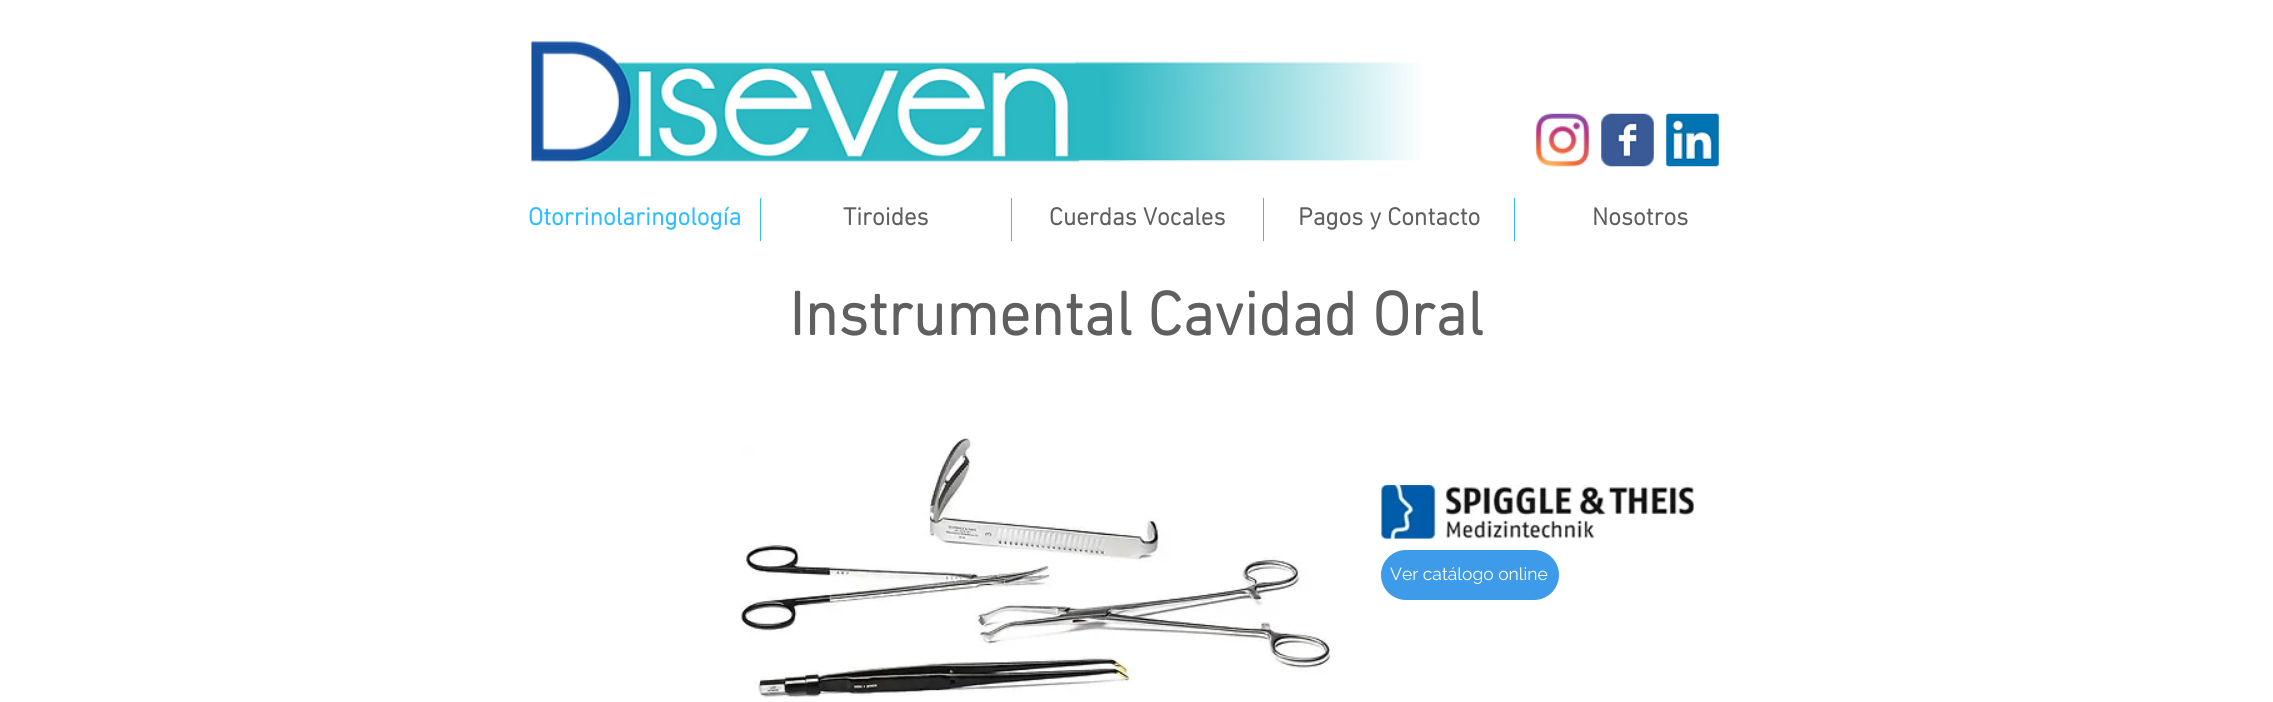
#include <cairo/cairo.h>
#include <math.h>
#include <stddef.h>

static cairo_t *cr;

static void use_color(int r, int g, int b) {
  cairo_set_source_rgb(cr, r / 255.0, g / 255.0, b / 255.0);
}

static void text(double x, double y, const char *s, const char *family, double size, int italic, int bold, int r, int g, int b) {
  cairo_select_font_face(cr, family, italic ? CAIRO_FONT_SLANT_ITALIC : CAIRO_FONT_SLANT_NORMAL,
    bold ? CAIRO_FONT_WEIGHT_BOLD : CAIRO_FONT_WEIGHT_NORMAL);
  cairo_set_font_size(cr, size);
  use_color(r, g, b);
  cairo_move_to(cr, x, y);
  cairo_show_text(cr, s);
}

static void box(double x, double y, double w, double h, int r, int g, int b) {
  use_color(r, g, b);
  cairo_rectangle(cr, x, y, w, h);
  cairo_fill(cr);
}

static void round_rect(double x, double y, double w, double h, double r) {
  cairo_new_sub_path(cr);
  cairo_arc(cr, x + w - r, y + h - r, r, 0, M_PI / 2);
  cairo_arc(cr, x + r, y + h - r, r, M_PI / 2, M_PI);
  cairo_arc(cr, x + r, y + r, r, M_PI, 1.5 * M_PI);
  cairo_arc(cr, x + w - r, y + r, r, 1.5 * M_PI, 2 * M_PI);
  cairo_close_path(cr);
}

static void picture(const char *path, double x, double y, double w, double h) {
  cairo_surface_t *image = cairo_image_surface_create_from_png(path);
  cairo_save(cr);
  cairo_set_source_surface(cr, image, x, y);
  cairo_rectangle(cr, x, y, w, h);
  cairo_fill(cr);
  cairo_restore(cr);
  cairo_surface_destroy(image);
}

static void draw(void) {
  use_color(255, 255, 255);
  cairo_paint(cr);
  picture("img_01.png", 531, 41, 889, 122);
  picture("img_02.png", 1536, 113, 53, 54);
  picture("img_03.png", 1601, 113, 53, 54);
  picture("img_04.png", 1666, 113, 53, 54);
  box(760, 198, 1, 43, 48, 189, 255);
  box(1011, 198, 1, 43, 48, 189, 255);
  box(1263, 198, 1, 43, 48, 189, 255);
  box(1514, 198, 1, 43, 48, 189, 255);
  picture("img_05.png", 740, 436, 591, 262);
  picture("img_06.png", 1381, 485, 313, 54);
  use_color(61, 155, 233);
  round_rect(1381, 550, 178, 50, 25);
  cairo_fill(cr);
  text(528, 225, "Otorrinolaringología", "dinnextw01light", 25, 0, 1, 48, 189, 255);
  text(843, 225, "Tiroides", "dinnextw01light", 25, 0, 1, 96, 94, 94);
  text(1049, 225, "Cuerdas Vocales", "dinnextw01light", 25, 0, 1, 96, 94, 94);
  text(1298, 225, "Pagos y Contacto", "dinnextw01light", 25, 0, 1, 96, 94, 94);
  text(1592, 225, "Nosotros", "dinnextw01light", 25, 0, 1, 96, 94, 94);
  text(789, 335, "Instrumental Cavidad Oral", "dinnextw01light", 62.5, 0, 1, 96, 94, 94);
  text(1390, 580, "Ver catálogo online", "Raleway", 17.5, 0, 0, 255, 255, 255);
}

int main(void) {
  cairo_surface_t *surface = cairo_image_surface_create(CAIRO_FORMAT_RGB24, 2273, 702);
  cr = cairo_create(surface);
  cairo_font_options_t *options = cairo_font_options_create();
  cairo_font_options_set_hint_metrics(options, CAIRO_HINT_METRICS_OFF);
  cairo_font_options_set_hint_style(options, CAIRO_HINT_STYLE_NONE);
  cairo_set_font_options(cr, options);
  cairo_set_miter_limit(cr, 4);
  draw();
  cairo_surface_write_to_png(surface, "out.png");
  cairo_font_options_destroy(options);
  cairo_destroy(cr);
  cairo_surface_destroy(surface);
  return 0;
}
